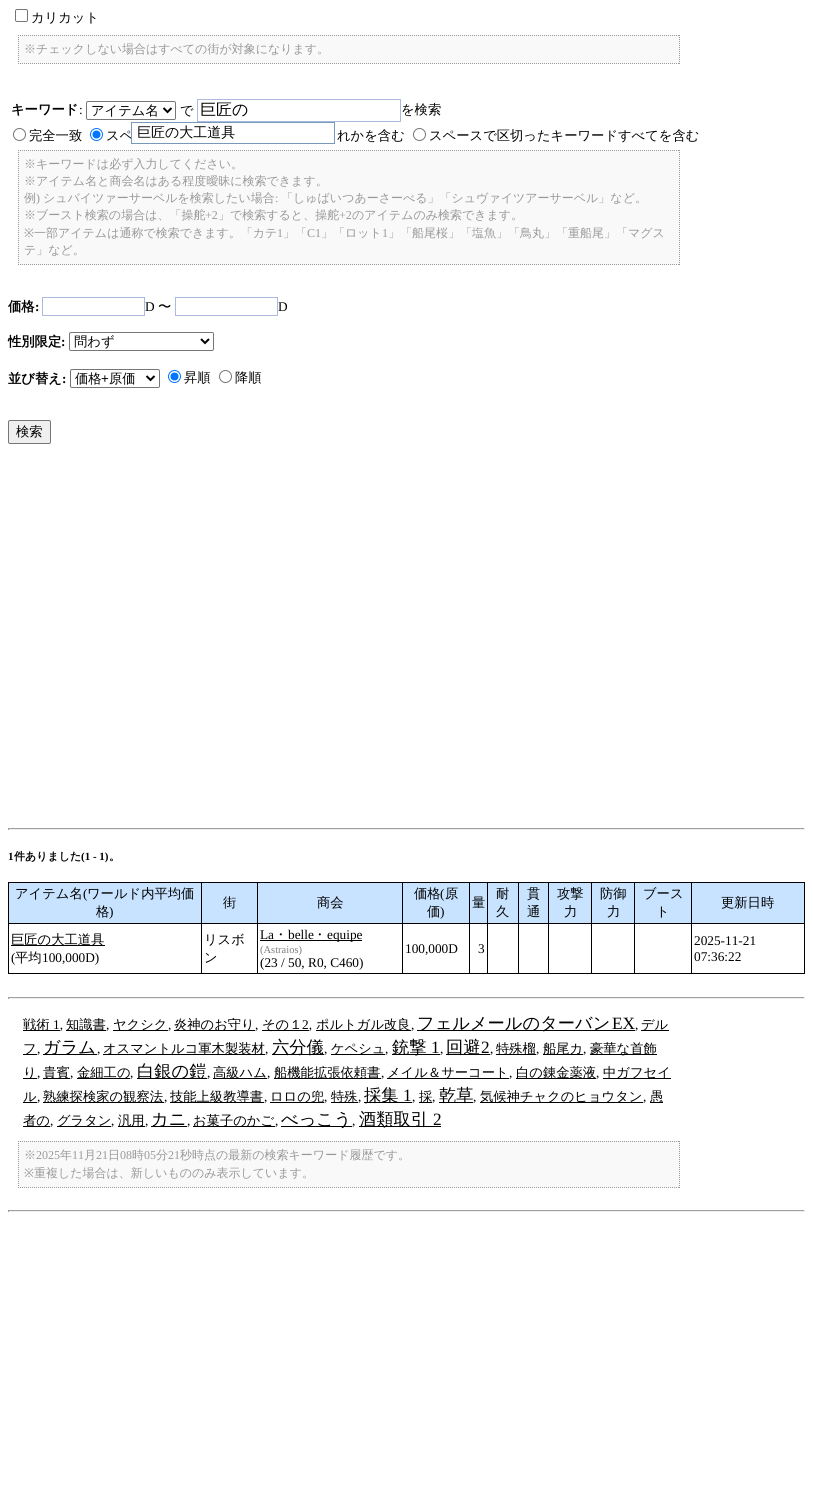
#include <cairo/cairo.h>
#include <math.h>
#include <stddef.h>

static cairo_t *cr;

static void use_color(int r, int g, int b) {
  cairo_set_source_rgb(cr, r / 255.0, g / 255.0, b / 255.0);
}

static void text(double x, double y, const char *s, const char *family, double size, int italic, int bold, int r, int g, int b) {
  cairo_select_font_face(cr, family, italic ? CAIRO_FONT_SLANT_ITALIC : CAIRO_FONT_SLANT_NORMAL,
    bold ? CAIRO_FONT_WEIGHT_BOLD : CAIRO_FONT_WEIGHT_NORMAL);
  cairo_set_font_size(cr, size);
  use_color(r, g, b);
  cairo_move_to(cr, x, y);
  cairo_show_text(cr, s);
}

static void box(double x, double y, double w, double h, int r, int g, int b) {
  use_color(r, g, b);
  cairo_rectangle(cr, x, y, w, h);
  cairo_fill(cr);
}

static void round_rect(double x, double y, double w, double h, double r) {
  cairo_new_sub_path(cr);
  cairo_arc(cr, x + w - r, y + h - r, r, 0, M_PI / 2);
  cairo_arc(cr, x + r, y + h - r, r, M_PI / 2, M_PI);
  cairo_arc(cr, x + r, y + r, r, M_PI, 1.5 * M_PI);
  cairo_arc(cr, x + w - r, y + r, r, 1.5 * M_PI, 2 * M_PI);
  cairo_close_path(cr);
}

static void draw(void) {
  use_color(255, 255, 255);
  cairo_paint(cr);
  round_rect(15.5, 9.5, 12, 12, 1.5);
  use_color(118, 118, 118);
  cairo_set_line_width(cr, 1);
  cairo_stroke(cr);
  box(18, 35, 662, 29, 249, 249, 249);
  cairo_new_path(cr);
  cairo_move_to(cr, 18, 35.5);
  cairo_line_to(cr, 680, 35.5);
  use_color(153, 153, 153);
  cairo_set_dash(cr, (double[]){1, 1}, 2, 0);
  cairo_stroke(cr);
  cairo_new_path(cr);
  cairo_move_to(cr, 679.5, 35);
  cairo_line_to(cr, 679.5, 64);
  cairo_stroke(cr);
  cairo_new_path(cr);
  cairo_move_to(cr, 18, 63.5);
  cairo_line_to(cr, 680, 63.5);
  cairo_stroke(cr);
  cairo_new_path(cr);
  cairo_move_to(cr, 18.5, 35);
  cairo_line_to(cr, 18.5, 64);
  cairo_stroke(cr);
  cairo_rectangle(cr, 197.5, 99.5, 203, 22);
  use_color(170, 187, 221);
  cairo_set_dash(cr, NULL, 0, 0);
  cairo_stroke(cr);
  round_rect(86.5, 101.5, 89, 18, 1.5);
  use_color(118, 118, 118);
  cairo_stroke(cr);
  cairo_new_path(cr);
  cairo_move_to(cr, 163.5, 108);
  cairo_line_to(cr, 167.5, 112);
  cairo_line_to(cr, 171.5, 108);
  use_color(0, 0, 0);
  cairo_set_line_width(cr, 2);
  cairo_stroke(cr);
  cairo_arc(cr, 19.5, 134.5, 6, 0, 2 * M_PI);
  use_color(118, 118, 118);
  cairo_set_line_width(cr, 1);
  cairo_stroke(cr);
  cairo_arc(cr, 96.5, 134.5, 6, 0, 2 * M_PI);
  use_color(0, 117, 255);
  cairo_stroke(cr);
  cairo_arc(cr, 96.5, 134.5, 4, 0, 2 * M_PI);
  cairo_fill(cr);
  cairo_arc(cr, 419.5, 134.5, 6, 0, 2 * M_PI);
  use_color(118, 118, 118);
  cairo_stroke(cr);
  box(18, 150, 662, 115, 249, 249, 249);
  cairo_new_path(cr);
  cairo_move_to(cr, 18, 150.5);
  cairo_line_to(cr, 680, 150.5);
  use_color(153, 153, 153);
  cairo_set_dash(cr, (double[]){1, 1}, 2, 0);
  cairo_stroke(cr);
  cairo_new_path(cr);
  cairo_move_to(cr, 679.5, 150);
  cairo_line_to(cr, 679.5, 265);
  cairo_stroke(cr);
  cairo_new_path(cr);
  cairo_move_to(cr, 18, 264.5);
  cairo_line_to(cr, 680, 264.5);
  cairo_stroke(cr);
  cairo_new_path(cr);
  cairo_move_to(cr, 18.5, 150);
  cairo_line_to(cr, 18.5, 265);
  cairo_stroke(cr);
  cairo_rectangle(cr, 42.5, 297.5, 102, 18);
  use_color(170, 187, 221);
  cairo_set_dash(cr, NULL, 0, 0);
  cairo_stroke(cr);
  cairo_rectangle(cr, 175.5, 297.5, 102, 18);
  cairo_stroke(cr);
  round_rect(69.5, 332.5, 144, 18, 1.5);
  use_color(118, 118, 118);
  cairo_stroke(cr);
  cairo_new_path(cr);
  cairo_move_to(cr, 201, 339);
  cairo_line_to(cr, 205, 343);
  cairo_line_to(cr, 209, 339);
  use_color(0, 0, 0);
  cairo_set_line_width(cr, 2);
  cairo_stroke(cr);
  round_rect(70.5, 369.5, 89, 18, 1.5);
  use_color(118, 118, 118);
  cairo_set_line_width(cr, 1);
  cairo_stroke(cr);
  cairo_new_path(cr);
  cairo_move_to(cr, 146.5, 376);
  cairo_line_to(cr, 150.5, 380);
  cairo_line_to(cr, 154.5, 376);
  use_color(0, 0, 0);
  cairo_set_line_width(cr, 2);
  cairo_stroke(cr);
  cairo_arc(cr, 174.5, 376.5, 6, 0, 2 * M_PI);
  use_color(0, 117, 255);
  cairo_set_line_width(cr, 1);
  cairo_stroke(cr);
  cairo_arc(cr, 174.5, 376.5, 4, 0, 2 * M_PI);
  cairo_fill(cr);
  cairo_arc(cr, 225.5, 376.5, 6, 0, 2 * M_PI);
  use_color(118, 118, 118);
  cairo_stroke(cr);
  use_color(239, 239, 239);
  round_rect(8.5, 420.5, 42, 23, 1.5);
  cairo_fill_preserve(cr);
  use_color(118, 118, 118);
  cairo_stroke(cr);
  box(8, 828, 797, 1, 159, 159, 159);
  box(804, 828, 1, 2, 238, 238, 238);
  box(8, 829, 797, 1, 238, 238, 238);
  box(8, 828, 1, 2, 159, 159, 159);
  box(8, 882, 797, 1, 0, 0, 0);
  box(804, 882, 1, 92, 0, 0, 0);
  box(8, 973, 797, 1, 0, 0, 0);
  box(8, 882, 1, 92, 0, 0, 0);
  box(9, 883, 192, 40, 200, 227, 255);
  box(202, 883, 55, 40, 200, 227, 255);
  box(691, 923, 114, 1, 0, 0, 0);
  box(691, 923, 1, 51, 0, 0, 0);
  box(634, 923, 58, 1, 0, 0, 0);
  box(634, 923, 1, 51, 0, 0, 0);
  box(591, 923, 44, 1, 0, 0, 0);
  box(591, 923, 1, 51, 0, 0, 0);
  box(548, 923, 44, 1, 0, 0, 0);
  box(548, 923, 1, 51, 0, 0, 0);
  box(518, 923, 31, 1, 0, 0, 0);
  box(518, 923, 1, 51, 0, 0, 0);
  box(487, 923, 32, 1, 0, 0, 0);
  box(487, 923, 1, 51, 0, 0, 0);
  box(469, 923, 19, 1, 0, 0, 0);
  box(469, 923, 1, 51, 0, 0, 0);
  box(402, 923, 68, 1, 0, 0, 0);
  box(402, 923, 1, 51, 0, 0, 0);
  box(257, 923, 146, 1, 0, 0, 0);
  box(257, 923, 1, 51, 0, 0, 0);
  box(201, 923, 57, 1, 0, 0, 0);
  box(201, 923, 1, 51, 0, 0, 0);
  box(8, 923, 194, 1, 0, 0, 0);
  box(201, 882, 1, 42, 0, 0, 0);
  box(258, 883, 144, 40, 200, 227, 255);
  box(257, 882, 1, 42, 0, 0, 0);
  box(403, 883, 66, 40, 200, 227, 255);
  box(402, 882, 1, 42, 0, 0, 0);
  box(470, 883, 17, 40, 200, 227, 255);
  box(469, 882, 1, 42, 0, 0, 0);
  box(488, 883, 30, 40, 200, 227, 255);
  box(487, 882, 1, 42, 0, 0, 0);
  box(519, 883, 29, 40, 200, 227, 255);
  box(518, 882, 1, 42, 0, 0, 0);
  box(549, 883, 42, 40, 200, 227, 255);
  box(548, 882, 1, 42, 0, 0, 0);
  box(592, 883, 42, 40, 200, 227, 255);
  box(591, 882, 1, 42, 0, 0, 0);
  box(635, 883, 56, 40, 200, 227, 255);
  box(634, 882, 1, 42, 0, 0, 0);
  box(692, 883, 112, 40, 200, 227, 255);
  box(691, 882, 1, 42, 0, 0, 0);
  box(11, 945, 94, 1, 0, 0, 0);
  box(260, 940, 102, 1, 0, 0, 0);
  box(8, 997, 797, 1, 159, 159, 159);
  box(804, 997, 1, 2, 238, 238, 238);
  box(8, 998, 797, 1, 238, 238, 238);
  box(8, 997, 1, 2, 159, 159, 159);
  box(23, 1030, 37, 1, 0, 0, 0);
  box(66, 1030, 40, 1, 0, 0, 0);
  box(113, 1030, 55, 1, 0, 0, 0);
  box(174, 1030, 81, 1, 0, 0, 0);
  box(262, 1030, 47, 1, 0, 0, 0);
  box(316, 1030, 95, 1, 0, 0, 0);
  box(417, 1030, 218, 1, 0, 0, 0);
  box(641, 1030, 28, 1, 0, 0, 0);
  box(23, 1054, 14, 1, 0, 0, 0);
  box(43, 1054, 54, 1, 0, 0, 0);
  box(103, 1054, 162, 1, 0, 0, 0);
  box(272, 1054, 52, 1, 0, 0, 0);
  box(331, 1054, 54, 1, 0, 0, 0);
  box(392, 1054, 48, 1, 0, 0, 0);
  box(446, 1054, 44, 1, 0, 0, 0);
  box(496, 1054, 40, 1, 0, 0, 0);
  box(543, 1054, 40, 1, 0, 0, 0);
  box(590, 1054, 67, 1, 0, 0, 0);
  box(23, 1078, 14, 1, 0, 0, 0);
  box(43, 1078, 27, 1, 0, 0, 0);
  box(77, 1078, 53, 1, 0, 0, 0);
  box(137, 1078, 70, 1, 0, 0, 0);
  box(213, 1078, 54, 1, 0, 0, 0);
  box(274, 1078, 107, 1, 0, 0, 0);
  box(387, 1078, 122, 1, 0, 0, 0);
  box(516, 1078, 80, 1, 0, 0, 0);
  box(603, 1078, 68, 1, 0, 0, 0);
  box(23, 1102, 14, 1, 0, 0, 0);
  box(43, 1102, 121, 1, 0, 0, 0);
  box(170, 1102, 94, 1, 0, 0, 0);
  box(270, 1102, 54, 1, 0, 0, 0);
  box(331, 1102, 27, 1, 0, 0, 0);
  box(364, 1102, 48, 1, 0, 0, 0);
  box(419, 1102, 13, 1, 0, 0, 0);
  box(439, 1102, 34, 1, 0, 0, 0);
  box(480, 1102, 163, 1, 0, 0, 0);
  box(650, 1102, 13, 1, 0, 0, 0);
  box(23, 1126, 27, 1, 0, 0, 0);
  box(57, 1126, 54, 1, 0, 0, 0);
  box(118, 1126, 27, 1, 0, 0, 0);
  box(151, 1126, 36, 1, 0, 0, 0);
  box(193, 1126, 82, 1, 0, 0, 0);
  box(281, 1126, 71, 1, 0, 0, 0);
  box(359, 1126, 82, 1, 0, 0, 0);
  box(18, 1141, 662, 47, 249, 249, 249);
  cairo_new_path(cr);
  cairo_move_to(cr, 18, 1141.5);
  cairo_line_to(cr, 680, 1141.5);
  use_color(153, 153, 153);
  cairo_set_dash(cr, (double[]){1, 1}, 2, 0);
  cairo_stroke(cr);
  cairo_new_path(cr);
  cairo_move_to(cr, 679.5, 1141);
  cairo_line_to(cr, 679.5, 1188);
  cairo_stroke(cr);
  cairo_new_path(cr);
  cairo_move_to(cr, 18, 1187.5);
  cairo_line_to(cr, 680, 1187.5);
  cairo_stroke(cr);
  cairo_new_path(cr);
  cairo_move_to(cr, 18.5, 1141);
  cairo_line_to(cr, 18.5, 1188);
  cairo_stroke(cr);
  box(8, 1210, 797, 1, 159, 159, 159);
  box(804, 1210, 1, 2, 238, 238, 238);
  box(8, 1211, 797, 1, 238, 238, 238);
  box(8, 1210, 1, 2, 159, 159, 159);
  text(31, 22, "カリカット", "WenQuanYi Zen Hei Medium", 13.3, 0, 0, 0, 0, 0);
  text(24, 53, "※チェックしない場合はすべての街が対象になります。", "WenQuanYi Zen Hei Medium", 12, 0, 0, 153, 153, 153);
  text(11, 114, "キーワード", "WenQuanYi Zen Hei", 13.3, 0, 1, 0, 0, 0);
  text(79, 114, ":", "Liberation Serif", 13.3, 0, 0, 0, 0, 0);
  text(200, 115, "巨匠の", "WenQuanYi Zen Hei Medium", 16, 0, 0, 0, 0, 0);
  text(401, 114, "を検索", "WenQuanYi Zen Hei Medium", 13.3, 0, 0, 0, 0, 0);
  text(91, 115, "アイテム名", "WenQuanYi Zen Hei Medium", 13.3, 0, 0, 0, 0, 0);
  text(180, 115, "で", "WenQuanYi Zen Hei Medium", 13.3, 0, 0, 0, 0, 0);
  text(29, 140, "完全一致", "WenQuanYi Zen Hei Medium", 13.3, 0, 0, 0, 0, 0);
  text(106, 140, "スペ", "WenQuanYi Zen Hei Medium", 13.3, 0, 0, 0, 0, 0);
  box(132, 137, 1, 2, 255, 255, 255);
  cairo_rectangle(cr, 131.5, 122.5, 203, 21);
  use_color(119, 153, 187);
  cairo_set_dash(cr, NULL, 0, 0);
  cairo_stroke(cr);
  text(137, 137, "巨匠の大工道具", "WenQuanYi Zen Hei Medium", 14, 0, 0, 0, 0, 0);
  text(337, 140, "れかを含む", "WenQuanYi Zen Hei Medium", 13.3, 0, 0, 0, 0, 0);
  text(429, 140, "スペースで区切ったキーワードすべてを含む", "WenQuanYi Zen Hei Medium", 13.3, 0, 0, 0, 0, 0);
  text(24, 168, "※キーワードは必ず入力してください。", "WenQuanYi Zen Hei Medium", 12, 0, 0, 153, 153, 153);
  text(24, 185, "※アイテム名と商会名はある程度曖昧に検索できます。", "WenQuanYi Zen Hei Medium", 12, 0, 0, 153, 153, 153);
  text(24, 202, "例", "WenQuanYi Zen Hei Medium", 12, 0, 0, 153, 153, 153);
  text(36, 202, ")", "Liberation Serif", 12, 0, 0, 153, 153, 153);
  text(43, 202, "シュバイツァーサーベルを検索したい場合", "WenQuanYi Zen Hei Medium", 12, 0, 0, 153, 153, 153);
  text(275, 202, ":", "Liberation Serif", 12, 0, 0, 153, 153, 153);
  text(281, 202, "「しゅばいつあーさーべる」「シュヴァイツアーサーベル」など。", "WenQuanYi Zen Hei Medium", 12, 0, 0, 153, 153, 153);
  text(24, 219, "※ブースト検索の場合は、「操舵", "WenQuanYi Zen Hei Medium", 12, 0, 0, 153, 153, 153);
  text(205, 219, "+2", "Liberation Serif", 12, 0, 0, 153, 153, 153);
  text(218, 219, "」で検索すると、操舵", "WenQuanYi Zen Hei Medium", 12, 0, 0, 153, 153, 153);
  text(339, 219, "+2", "Liberation Serif", 12, 0, 0, 153, 153, 153);
  text(352, 219, "のアイテムのみ検索できます。", "WenQuanYi Zen Hei Medium", 12, 0, 0, 153, 153, 153);
  text(24, 237, "※", "Noto Sans", 12, 0, 0, 153, 153, 153);
  text(34, 237, "一部アイテムは通称で検索できます。「カテ", "WenQuanYi Zen Hei Medium", 12, 0, 0, 153, 153, 153);
  text(277, 237, "1", "Liberation Serif", 12, 0, 0, 153, 153, 153);
  text(283, 237, "」「", "WenQuanYi Zen Hei Medium", 12, 0, 0, 153, 153, 153);
  text(307, 237, "C1", "Liberation Serif", 12, 0, 0, 153, 153, 153);
  text(321, 237, "」「ロット", "WenQuanYi Zen Hei Medium", 12, 0, 0, 153, 153, 153);
  text(382, 237, "1", "Liberation Serif", 12, 0, 0, 153, 153, 153);
  text(388, 237, "」「船尾桜」「塩魚」「鳥丸」「重船尾」「マグス", "WenQuanYi Zen Hei Medium", 12, 0, 0, 153, 153, 153);
  text(24, 254, "テ」など。", "WenQuanYi Zen Hei Medium", 12, 0, 0, 153, 153, 153);
  text(8, 311, "価格", "WenQuanYi Zen Hei", 13.3, 0, 1, 0, 0, 0);
  text(35, 311, ":", "Liberation Serif", 13.3, 0, 1, 0, 0, 0);
  text(145, 311, "D", "Liberation Serif", 13.3, 0, 0, 0, 0, 0);
  text(158, 311, "〜", "WenQuanYi Zen Hei Medium", 13.3, 0, 0, 0, 0, 0);
  text(278, 311, "D", "Liberation Serif", 13.3, 0, 0, 0, 0, 0);
  text(8, 346, "性別限定", "WenQuanYi Zen Hei", 13.3, 0, 1, 0, 0, 0);
  text(61, 346, ":", "Liberation Serif", 13.3, 0, 1, 0, 0, 0);
  text(74, 346, "問わず", "WenQuanYi Zen Hei Medium", 13.3, 0, 0, 0, 0, 0);
  text(8, 383, "並び替え", "WenQuanYi Zen Hei", 13.3, 0, 1, 0, 0, 0);
  text(62, 383, ":", "Liberation Serif", 13.3, 0, 1, 0, 0, 0);
  text(75, 383, "価格", "WenQuanYi Zen Hei Medium", 13.3, 0, 0, 0, 0, 0);
  text(101, 383, "+", "Liberation Sans", 13.3, 0, 0, 0, 0, 0);
  text(109, 383, "原価", "WenQuanYi Zen Hei Medium", 13.3, 0, 0, 0, 0, 0);
  text(184, 382, "昇順", "WenQuanYi Zen Hei Medium", 13.3, 0, 0, 0, 0, 0);
  text(235, 382, "降順", "WenQuanYi Zen Hei Medium", 13.3, 0, 0, 0, 0, 0);
  text(16, 436, "検索", "WenQuanYi Zen Hei Medium", 13.3, 0, 0, 0, 0, 0);
  text(8, 860, "1", "Liberation Serif", 11, 0, 1, 0, 0, 0);
  text(14, 860, "件ありました", "WenQuanYi Zen Hei", 11, 0, 1, 0, 0, 0);
  text(81, 860, "(1 - 1)", "Liberation Serif", 11, 0, 1, 0, 0, 0);
  text(109, 860, "。", "WenQuanYi Zen Hei", 11, 0, 1, 0, 0, 0);
  text(15, 898, "アイテム名", "WenQuanYi Zen Hei Medium", 13.3, 0, 0, 0, 0, 0);
  text(83, 898, "(", "Liberation Serif", 13.3, 0, 0, 0, 0, 0);
  text(87, 898, "ワールド内平均価", "WenQuanYi Zen Hei Medium", 13.3, 0, 0, 0, 0, 0);
  text(96, 916, "格", "WenQuanYi Zen Hei Medium", 13.3, 0, 0, 0, 0, 0);
  text(109, 916, ")", "Liberation Serif", 13.3, 0, 0, 0, 0, 0);
  text(223, 907, "街", "WenQuanYi Zen Hei Medium", 13.3, 0, 0, 0, 0, 0);
  text(317, 907, "商会", "WenQuanYi Zen Hei Medium", 13.3, 0, 0, 0, 0, 0);
  text(414, 898, "価格", "WenQuanYi Zen Hei Medium", 13.3, 0, 0, 0, 0, 0);
  text(440, 898, "(", "Liberation Serif", 13.3, 0, 0, 0, 0, 0);
  text(445, 898, "原", "WenQuanYi Zen Hei Medium", 13.3, 0, 0, 0, 0, 0);
  text(427, 916, "価", "WenQuanYi Zen Hei Medium", 13.3, 0, 0, 0, 0, 0);
  text(440, 916, ")", "Liberation Serif", 13.3, 0, 0, 0, 0, 0);
  text(472, 907, "量", "WenQuanYi Zen Hei Medium", 13.3, 0, 0, 0, 0, 0);
  text(496, 898, "耐", "WenQuanYi Zen Hei Medium", 13.3, 0, 0, 0, 0, 0);
  text(496, 916, "久", "WenQuanYi Zen Hei Medium", 13.3, 0, 0, 0, 0, 0);
  text(527, 898, "貫", "WenQuanYi Zen Hei Medium", 13.3, 0, 0, 0, 0, 0);
  text(527, 916, "通", "WenQuanYi Zen Hei Medium", 13.3, 0, 0, 0, 0, 0);
  text(557, 898, "攻撃", "WenQuanYi Zen Hei Medium", 13.3, 0, 0, 0, 0, 0);
  text(564, 916, "力", "WenQuanYi Zen Hei Medium", 13.3, 0, 0, 0, 0, 0);
  text(600, 898, "防御", "WenQuanYi Zen Hei Medium", 13.3, 0, 0, 0, 0, 0);
  text(607, 916, "力", "WenQuanYi Zen Hei Medium", 13.3, 0, 0, 0, 0, 0);
  text(643, 898, "ブース", "WenQuanYi Zen Hei Medium", 13.3, 0, 0, 0, 0, 0);
  text(656, 916, "ト", "WenQuanYi Zen Hei Medium", 13.3, 0, 0, 0, 0, 0);
  text(721, 907, "更新日時", "WenQuanYi Zen Hei Medium", 13.3, 0, 0, 0, 0, 0);
  text(11, 944, "巨匠の大工道具", "WenQuanYi Zen Hei Medium", 13.3, 0, 0, 0, 0, 0);
  text(11, 962, "(", "Liberation Serif", 13.3, 0, 0, 0, 0, 0);
  text(15, 962, "平均", "WenQuanYi Zen Hei Medium", 13.3, 0, 0, 0, 0, 0);
  text(42, 962, "100,000D)", "Liberation Serif", 13.3, 0, 0, 0, 0, 0);
  text(204, 944, "リスボ", "WenQuanYi Zen Hei Medium", 13.3, 0, 0, 0, 0, 0);
  text(204, 962, "ン", "WenQuanYi Zen Hei Medium", 13.3, 0, 0, 0, 0, 0);
  text(260, 939, "La", "Liberation Serif", 13.3, 0, 0, 0, 0, 0);
  text(274, 939, "・", "WenQuanYi Zen Hei Medium", 13.3, 0, 0, 0, 0, 0);
  text(288, 939, "belle", "Liberation Serif", 13.3, 0, 0, 0, 0, 0);
  text(313, 939, "・", "WenQuanYi Zen Hei Medium", 13.3, 0, 0, 0, 0, 0);
  text(327, 939, "equipe", "Liberation Serif", 13.3, 0, 0, 0, 0, 0);
  text(260, 953, "(Astraios)", "Liberation Serif", 10.5, 0, 0, 127, 127, 127);
  text(260, 967, "(23 / 50, R0, C460)", "Liberation Serif", 13.3, 0, 0, 0, 0, 0);
  text(405, 953, "100,000D", "Liberation Serif", 13.3, 0, 0, 0, 0, 0);
  text(478, 953, "3", "Liberation Serif", 13.3, 0, 0, 0, 0, 0);
  text(694, 945, "2025-11-21", "Liberation Serif", 13.3, 0, 0, 0, 0, 0);
  text(694, 961, "07:36:22", "Liberation Serif", 13.3, 0, 0, 0, 0, 0);
  text(23, 1029, "戦術", "WenQuanYi Zen Hei Medium", 13.3, 0, 0, 0, 0, 0);
  text(53, 1029, "1,", "Liberation Serif", 13.3, 0, 0, 0, 0, 0);
  text(66, 1029, "知識書", "WenQuanYi Zen Hei Medium", 13.3, 0, 0, 0, 0, 0);
  text(106, 1029, ",", "Liberation Serif", 13.3, 0, 0, 0, 0, 0);
  text(113, 1029, "ヤクシク", "WenQuanYi Zen Hei Medium", 13.3, 0, 0, 0, 0, 0);
  text(168, 1029, ",", "Liberation Serif", 13.3, 0, 0, 0, 0, 0);
  text(174, 1029, "炎神のお守り", "WenQuanYi Zen Hei Medium", 13.3, 0, 0, 0, 0, 0);
  text(255, 1029, ",", "Liberation Serif", 13.3, 0, 0, 0, 0, 0);
  text(262, 1029, "その１", "WenQuanYi Zen Hei Medium", 13.3, 0, 0, 0, 0, 0);
  text(302, 1029, "2,", "Liberation Serif", 13.3, 0, 0, 0, 0, 0);
  text(316, 1029, "ポルトガル改良", "WenQuanYi Zen Hei Medium", 13.3, 0, 0, 0, 0, 0);
  text(411, 1029, ",", "Liberation Serif", 13.3, 0, 0, 0, 0, 0);
  text(417, 1029, "フェルメールのターバン", "WenQuanYi Zen Hei Medium", 17.25, 0, 0, 0, 0, 0);
  text(612, 1029, "EX", "Liberation Serif", 17.25, 0, 0, 0, 0, 0);
  text(635, 1029, ",", "Liberation Serif", 13.3, 0, 0, 0, 0, 0);
  text(641, 1029, "デル", "WenQuanYi Zen Hei Medium", 13.3, 0, 0, 0, 0, 0);
  text(23, 1053, "フ", "WenQuanYi Zen Hei Medium", 13.3, 0, 0, 0, 0, 0);
  text(37, 1053, ",", "Liberation Serif", 13.3, 0, 0, 0, 0, 0);
  text(43, 1053, "ガラム", "WenQuanYi Zen Hei Medium", 17.25, 0, 0, 0, 0, 0);
  text(97, 1053, ",", "Liberation Serif", 13.3, 0, 0, 0, 0, 0);
  text(103, 1053, "オスマントルコ軍木製装材", "WenQuanYi Zen Hei Medium", 13.3, 0, 0, 0, 0, 0);
  text(265, 1053, ",", "Liberation Serif", 13.3, 0, 0, 0, 0, 0);
  text(272, 1053, "六分儀", "WenQuanYi Zen Hei Medium", 17.25, 0, 0, 0, 0, 0);
  text(324, 1053, ",", "Liberation Serif", 13.3, 0, 0, 0, 0, 0);
  text(331, 1053, "ケペシュ", "WenQuanYi Zen Hei Medium", 13.3, 0, 0, 0, 0, 0);
  text(385, 1053, ",", "Liberation Serif", 13.3, 0, 0, 0, 0, 0);
  text(392, 1053, "銃撃", "WenQuanYi Zen Hei Medium", 17.25, 0, 0, 0, 0, 0);
  text(431, 1053, "1", "Liberation Serif", 17.25, 0, 0, 0, 0, 0);
  text(440, 1053, ",", "Liberation Serif", 13.3, 0, 0, 0, 0, 0);
  text(446, 1053, "回避", "WenQuanYi Zen Hei Medium", 17.25, 0, 0, 0, 0, 0);
  text(481, 1053, "2", "Liberation Serif", 17.25, 0, 0, 0, 0, 0);
  text(490, 1053, ",", "Liberation Serif", 13.3, 0, 0, 0, 0, 0);
  text(496, 1053, "特殊榴", "WenQuanYi Zen Hei Medium", 13.3, 0, 0, 0, 0, 0);
  text(536, 1053, ",", "Liberation Serif", 13.3, 0, 0, 0, 0, 0);
  text(543, 1053, "船尾カ", "WenQuanYi Zen Hei Medium", 13.3, 0, 0, 0, 0, 0);
  text(583, 1053, ",", "Liberation Serif", 13.3, 0, 0, 0, 0, 0);
  text(590, 1053, "豪華な首飾", "WenQuanYi Zen Hei Medium", 13.3, 0, 0, 0, 0, 0);
  text(23, 1077, "り", "WenQuanYi Zen Hei Medium", 13.3, 0, 0, 0, 0, 0);
  text(37, 1077, ",", "Liberation Serif", 13.3, 0, 0, 0, 0, 0);
  text(43, 1077, "貴賓", "WenQuanYi Zen Hei Medium", 13.3, 0, 0, 0, 0, 0);
  text(70, 1077, ",", "Liberation Serif", 13.3, 0, 0, 0, 0, 0);
  text(77, 1077, "金細工の", "WenQuanYi Zen Hei Medium", 13.3, 0, 0, 0, 0, 0);
  text(130, 1077, ",", "Liberation Serif", 13.3, 0, 0, 0, 0, 0);
  text(137, 1077, "白銀の鎧", "WenQuanYi Zen Hei Medium", 17.25, 0, 0, 0, 0, 0);
  text(207, 1077, ",", "Liberation Serif", 13.3, 0, 0, 0, 0, 0);
  text(213, 1077, "高級ハム", "WenQuanYi Zen Hei Medium", 13.3, 0, 0, 0, 0, 0);
  text(267, 1077, ",", "Liberation Serif", 13.3, 0, 0, 0, 0, 0);
  text(274, 1077, "船機能拡張依頼書", "WenQuanYi Zen Hei Medium", 13.3, 0, 0, 0, 0, 0);
  text(381, 1077, ",", "Liberation Serif", 13.3, 0, 0, 0, 0, 0);
  text(387, 1077, "メイル＆サーコート", "WenQuanYi Zen Hei Medium", 13.3, 0, 0, 0, 0, 0);
  text(509, 1077, ",", "Liberation Serif", 13.3, 0, 0, 0, 0, 0);
  text(516, 1077, "白の錬金薬液", "WenQuanYi Zen Hei Medium", 13.3, 0, 0, 0, 0, 0);
  text(596, 1077, ",", "Liberation Serif", 13.3, 0, 0, 0, 0, 0);
  text(603, 1077, "中ガフセイ", "WenQuanYi Zen Hei Medium", 13.3, 0, 0, 0, 0, 0);
  text(23, 1101, "ル", "WenQuanYi Zen Hei Medium", 13.3, 0, 0, 0, 0, 0);
  text(37, 1101, ",", "Liberation Serif", 13.3, 0, 0, 0, 0, 0);
  text(43, 1101, "熟練探検家の観察法", "WenQuanYi Zen Hei Medium", 13.3, 0, 0, 0, 0, 0);
  text(164, 1101, ",", "Liberation Serif", 13.3, 0, 0, 0, 0, 0);
  text(170, 1101, "技能上級教導書", "WenQuanYi Zen Hei Medium", 13.3, 0, 0, 0, 0, 0);
  text(264, 1101, ",", "Liberation Serif", 13.3, 0, 0, 0, 0, 0);
  text(270, 1101, "ロロの兜", "WenQuanYi Zen Hei Medium", 13.3, 0, 0, 0, 0, 0);
  text(324, 1101, ",", "Liberation Serif", 13.3, 0, 0, 0, 0, 0);
  text(331, 1101, "特殊", "WenQuanYi Zen Hei Medium", 13.3, 0, 0, 0, 0, 0);
  text(358, 1101, ",", "Liberation Serif", 13.3, 0, 0, 0, 0, 0);
  text(364, 1101, "採集", "WenQuanYi Zen Hei Medium", 17.25, 0, 0, 0, 0, 0);
  text(403, 1101, "1", "Liberation Serif", 17.25, 0, 0, 0, 0, 0);
  text(412, 1101, ",", "Liberation Serif", 13.3, 0, 0, 0, 0, 0);
  text(419, 1101, "採", "WenQuanYi Zen Hei Medium", 13.3, 0, 0, 0, 0, 0);
  text(432, 1101, ",", "Liberation Serif", 13.3, 0, 0, 0, 0, 0);
  text(439, 1101, "乾草", "WenQuanYi Zen Hei Medium", 17.25, 0, 0, 0, 0, 0);
  text(473, 1101, ",", "Liberation Serif", 13.3, 0, 0, 0, 0, 0);
  text(480, 1101, "気候神チャクのヒョウタン", "WenQuanYi Zen Hei Medium", 13.3, 0, 0, 0, 0, 0);
  text(643, 1101, ",", "Liberation Serif", 13.3, 0, 0, 0, 0, 0);
  text(650, 1101, "愚", "WenQuanYi Zen Hei Medium", 13.3, 0, 0, 0, 0, 0);
  text(23, 1125, "者の", "WenQuanYi Zen Hei Medium", 13.3, 0, 0, 0, 0, 0);
  text(50, 1125, ",", "Liberation Serif", 13.3, 0, 0, 0, 0, 0);
  text(57, 1125, "グラタン", "WenQuanYi Zen Hei Medium", 13.3, 0, 0, 0, 0, 0);
  text(111, 1125, ",", "Liberation Serif", 13.3, 0, 0, 0, 0, 0);
  text(118, 1125, "汎用", "WenQuanYi Zen Hei Medium", 13.3, 0, 0, 0, 0, 0);
  text(145, 1125, ",", "Liberation Serif", 13.3, 0, 0, 0, 0, 0);
  text(151, 1125, "カニ", "WenQuanYi Zen Hei Medium", 17.25, 0, 0, 0, 0, 0);
  text(187, 1125, ",", "Liberation Serif", 13.3, 0, 0, 0, 0, 0);
  text(193, 1125, "お菓子のかご", "WenQuanYi Zen Hei Medium", 13.3, 0, 0, 0, 0, 0);
  text(275, 1125, ",", "Liberation Serif", 13.3, 0, 0, 0, 0, 0);
  text(281, 1125, "べっこう", "WenQuanYi Zen Hei Medium", 17.25, 0, 0, 0, 0, 0);
  text(352, 1125, ",", "Liberation Serif", 13.3, 0, 0, 0, 0, 0);
  text(359, 1125, "酒類取引", "WenQuanYi Zen Hei Medium", 17.25, 0, 0, 0, 0, 0);
  text(433, 1125, "2", "Liberation Serif", 17.25, 0, 0, 0, 0, 0);
  text(24, 1159, "※", "WenQuanYi Zen Hei Medium", 12, 0, 0, 153, 153, 153);
  text(36, 1159, "2025", "Liberation Serif", 12, 0, 0, 153, 153, 153);
  text(60, 1159, "年", "WenQuanYi Zen Hei Medium", 12, 0, 0, 153, 153, 153);
  text(72, 1159, "11", "Liberation Serif", 12, 0, 0, 153, 153, 153);
  text(84, 1159, "月", "WenQuanYi Zen Hei Medium", 12, 0, 0, 153, 153, 153);
  text(96, 1159, "21", "Liberation Serif", 12, 0, 0, 153, 153, 153);
  text(108, 1159, "日", "WenQuanYi Zen Hei Medium", 12, 0, 0, 153, 153, 153);
  text(120, 1159, "08", "Liberation Serif", 12, 0, 0, 153, 153, 153);
  text(132, 1159, "時", "WenQuanYi Zen Hei Medium", 12, 0, 0, 153, 153, 153);
  text(144, 1159, "05", "Liberation Serif", 12, 0, 0, 153, 153, 153);
  text(156, 1159, "分", "WenQuanYi Zen Hei Medium", 12, 0, 0, 153, 153, 153);
  text(168, 1159, "21", "Liberation Serif", 12, 0, 0, 153, 153, 153);
  text(180, 1159, "秒時点の最新の検索キーワード履歴です。", "WenQuanYi Zen Hei Medium", 12, 0, 0, 153, 153, 153);
  text(24, 1177, "※", "Noto Sans", 12, 0, 0, 153, 153, 153);
  text(34, 1177, "重複した場合は、新しいもののみ表示しています。", "WenQuanYi Zen Hei Medium", 12, 0, 0, 153, 153, 153);
}

int main(void) {
  cairo_surface_t *surface = cairo_image_surface_create(CAIRO_FORMAT_RGB24, 813, 1501);
  cr = cairo_create(surface);
  cairo_font_options_t *options = cairo_font_options_create();
  cairo_font_options_set_hint_metrics(options, CAIRO_HINT_METRICS_OFF);
  cairo_font_options_set_hint_style(options, CAIRO_HINT_STYLE_NONE);
  cairo_set_font_options(cr, options);
  cairo_set_miter_limit(cr, 4);
  draw();
  cairo_surface_write_to_png(surface, "out.png");
  cairo_font_options_destroy(options);
  cairo_destroy(cr);
  cairo_surface_destroy(surface);
  return 0;
}
